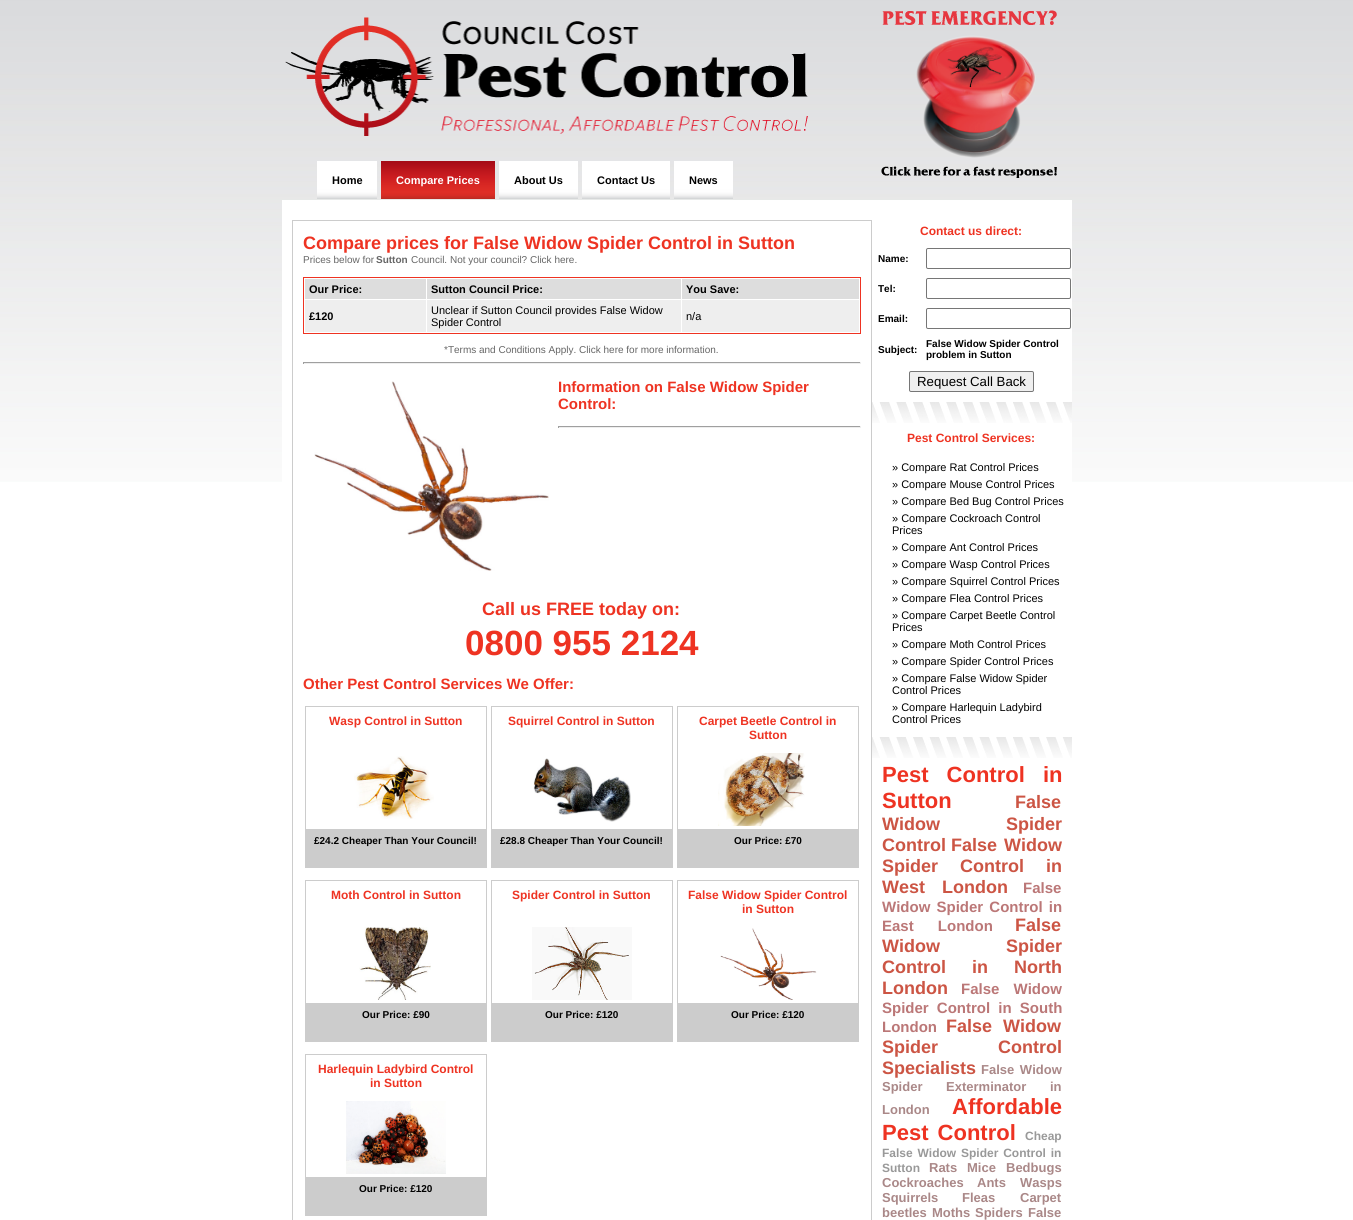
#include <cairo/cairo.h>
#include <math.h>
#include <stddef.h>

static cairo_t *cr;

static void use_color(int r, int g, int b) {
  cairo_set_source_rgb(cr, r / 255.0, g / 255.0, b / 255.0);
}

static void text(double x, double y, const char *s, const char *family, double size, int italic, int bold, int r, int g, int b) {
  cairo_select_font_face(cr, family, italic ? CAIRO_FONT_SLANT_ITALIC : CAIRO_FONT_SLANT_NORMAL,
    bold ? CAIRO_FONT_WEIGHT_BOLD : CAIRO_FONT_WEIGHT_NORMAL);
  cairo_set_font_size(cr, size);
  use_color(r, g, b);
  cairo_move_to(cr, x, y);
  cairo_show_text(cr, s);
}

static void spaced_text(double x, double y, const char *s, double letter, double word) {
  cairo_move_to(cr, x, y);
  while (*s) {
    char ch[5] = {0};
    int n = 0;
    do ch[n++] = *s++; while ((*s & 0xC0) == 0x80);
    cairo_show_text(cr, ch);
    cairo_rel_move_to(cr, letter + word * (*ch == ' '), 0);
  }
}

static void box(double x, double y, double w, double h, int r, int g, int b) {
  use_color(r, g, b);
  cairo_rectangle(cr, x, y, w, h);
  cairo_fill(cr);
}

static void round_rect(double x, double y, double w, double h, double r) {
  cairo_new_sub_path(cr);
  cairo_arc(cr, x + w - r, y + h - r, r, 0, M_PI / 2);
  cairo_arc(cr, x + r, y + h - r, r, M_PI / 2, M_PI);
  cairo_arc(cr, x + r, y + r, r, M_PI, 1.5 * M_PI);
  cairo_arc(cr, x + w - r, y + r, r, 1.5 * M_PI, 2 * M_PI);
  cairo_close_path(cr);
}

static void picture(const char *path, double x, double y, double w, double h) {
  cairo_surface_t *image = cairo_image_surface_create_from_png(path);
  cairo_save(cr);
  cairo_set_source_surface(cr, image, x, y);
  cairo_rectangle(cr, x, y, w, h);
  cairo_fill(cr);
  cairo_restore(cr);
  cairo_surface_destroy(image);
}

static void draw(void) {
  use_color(255, 255, 255);
  cairo_paint(cr);
  picture("img_01.png", 0, 0, 1353, 482);
  picture("img_02.png", 285, 17, 523, 119);
  picture("img_03.png", 881, 10, 176, 168);
  picture("img_04.png", 317, 161, 60, 38);
  picture("img_05.png", 381, 161, 114, 38);
  picture("img_06.png", 499, 161, 79, 38);
  picture("img_07.png", 582, 161, 88, 38);
  picture("img_08.png", 674, 161, 59, 38);
  box(282, 200, 790, 282, 255, 255, 255);
  cairo_rectangle(cr, 292.5, 220.5, 579, 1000);
  use_color(204, 204, 204);
  cairo_set_line_width(cr, 1);
  cairo_stroke(cr);
  cairo_rectangle(cr, 303.5, 277.5, 557, 56);
  use_color(238, 51, 34);
  cairo_stroke(cr);
  box(305, 279, 121, 20, 221, 221, 221);
  box(427, 279, 254, 20, 221, 221, 221);
  box(682, 279, 177, 20, 221, 221, 221);
  box(305, 300, 121, 32, 238, 238, 238);
  box(427, 300, 254, 32, 238, 238, 238);
  box(682, 300, 177, 32, 238, 238, 238);
  box(303, 362, 558, 1, 159, 159, 159);
  box(860, 362, 1, 2, 238, 238, 238);
  box(303, 363, 558, 1, 238, 238, 238);
  box(303, 362, 1, 2, 159, 159, 159);
  picture("img_09.png", 314, 381, 235, 190);
  box(558, 426, 303, 1, 159, 159, 159);
  box(860, 426, 1, 2, 238, 238, 238);
  box(558, 427, 303, 1, 238, 238, 238);
  box(558, 426, 1, 2, 159, 159, 159);
  cairo_rectangle(cr, 305.5, 706.5, 181, 161);
  use_color(204, 204, 204);
  cairo_stroke(cr);
  picture("img_10.png", 354, 756, 80, 63);
  box(306, 829, 180, 38, 204, 204, 204);
  cairo_rectangle(cr, 491.5, 706.5, 181, 161);
  cairo_stroke(cr);
  picture("img_11.png", 533, 758, 98, 64);
  box(492, 829, 180, 38, 204, 204, 204);
  cairo_rectangle(cr, 677.5, 706.5, 181, 161);
  cairo_stroke(cr);
  picture("img_12.png", 718, 753, 87, 73);
  box(678, 829, 180, 38, 204, 204, 204);
  cairo_rectangle(cr, 305.5, 880.5, 181, 161);
  cairo_stroke(cr);
  picture("img_13.png", 359, 927, 72, 73);
  box(306, 1003, 180, 38, 204, 204, 204);
  cairo_rectangle(cr, 491.5, 880.5, 181, 161);
  cairo_stroke(cr);
  picture("img_14.png", 532, 927, 100, 73);
  box(492, 1003, 180, 38, 204, 204, 204);
  cairo_rectangle(cr, 677.5, 880.5, 181, 161);
  cairo_stroke(cr);
  picture("img_15.png", 720, 928, 97, 72);
  box(678, 1003, 180, 38, 204, 204, 204);
  cairo_rectangle(cr, 305.5, 1054.5, 181, 161);
  cairo_stroke(cr);
  picture("img_16.png", 346, 1101, 100, 73);
  box(306, 1177, 180, 38, 204, 204, 204);
  round_rect(926.5, 248.5, 144, 20, 1.5);
  use_color(118, 118, 118);
  cairo_stroke(cr);
  round_rect(926.5, 278.5, 144, 20, 1.5);
  cairo_stroke(cr);
  round_rect(926.5, 308.5, 144, 20, 1.5);
  cairo_stroke(cr);
  use_color(239, 239, 239);
  round_rect(909.5, 371.5, 124, 20, 1.5);
  cairo_fill_preserve(cr);
  use_color(118, 118, 118);
  cairo_stroke(cr);
  picture("img_17.png", 872, 402, 200, 21);
  picture("img_17.png", 872, 737, 200, 21);
  text(332, 184, "Home", "Liberation Sans", 11, 0, 1, 0, 0, 0);
  text(396, 184, "Compare Prices", "Liberation Sans", 11, 0, 1, 255, 255, 255);
  text(514, 184, "About Us", "Liberation Sans", 11, 0, 1, 0, 0, 0);
  text(597, 184, "Contact Us", "Liberation Sans", 11, 0, 1, 0, 0, 0);
  text(689, 184, "News", "Liberation Sans", 11, 0, 1, 0, 0, 0);
  text(303, 249, "Compare prices for False Widow Spider Control in Sutton", "Liberation Sans", 18, 0, 1, 238, 51, 34);
  text(303, 263, "Prices below for", "Liberation Sans", 10, 0, 0, 102, 102, 102);
  text(376, 263, "Sutton", "Liberation Sans", 10, 0, 1, 102, 102, 102);
  text(411, 263, "Council. Not your council? Click here.", "Liberation Sans", 10, 0, 0, 102, 102, 102);
  text(309, 293, "Our Price:", "Liberation Sans", 11, 0, 1, 0, 0, 0);
  text(431, 293, "Sutton Council Price:", "Liberation Sans", 11, 0, 1, 0, 0, 0);
  text(686, 293, "You Save:", "Liberation Sans", 11, 0, 1, 0, 0, 0);
  text(309, 320, "£120", "Liberation Sans", 11, 0, 1, 0, 0, 0);
  text(431, 314, "Unclear if Sutton Council provides False Widow", "Liberation Sans", 11, 0, 0, 0, 0, 0);
  text(431, 326, "Spider Control", "Liberation Sans", 11, 0, 0, 0, 0, 0);
  text(686, 320, "n/a", "Liberation Sans", 11, 0, 0, 0, 0, 0);
  text(444, 353, "*Terms and Conditions Apply. Click here for more information.", "Liberation Sans", 10, 0, 0, 102, 102, 102);
  text(558, 392, "Information on False Widow Spider", "Liberation Sans", 15, 0, 1, 238, 51, 34);
  text(558, 409, "Control:", "Liberation Sans", 15, 0, 1, 238, 51, 34);
  text(482, 615, "Call us FREE today on:", "Liberation Sans", 18, 0, 1, 238, 51, 34);
  text(465, 655, "0800 955 2124", "Liberation Sans", 35, 0, 1, 238, 51, 34);
  text(303, 689, "Other Pest Control Services We Offer:", "Liberation Sans", 15, 0, 1, 238, 51, 34);
  text(329, 725, "Wasp Control in Sutton", "Liberation Sans", 12, 0, 1, 238, 51, 34);
  text(314, 844, "£24.2 Cheaper Than Your Council!", "Liberation Sans", 10, 0, 1, 0, 0, 0);
  text(508, 725, "Squirrel Control in Sutton", "Liberation Sans", 12, 0, 1, 238, 51, 34);
  text(500, 844, "£28.8 Cheaper Than Your Council!", "Liberation Sans", 10, 0, 1, 0, 0, 0);
  text(699, 725, "Carpet Beetle Control in", "Liberation Sans", 12, 0, 1, 238, 51, 34);
  text(749, 739, "Sutton", "Liberation Sans", 12, 0, 1, 238, 51, 34);
  text(734, 844, "Our Price: £70", "Liberation Sans", 10, 0, 1, 0, 0, 0);
  text(331, 899, "Moth Control in Sutton", "Liberation Sans", 12, 0, 1, 238, 51, 34);
  text(362, 1018, "Our Price: £90", "Liberation Sans", 10, 0, 1, 0, 0, 0);
  text(512, 899, "Spider Control in Sutton", "Liberation Sans", 12, 0, 1, 238, 51, 34);
  text(545, 1018, "Our Price: £120", "Liberation Sans", 10, 0, 1, 0, 0, 0);
  text(688, 899, "False Widow Spider Control", "Liberation Sans", 12, 0, 1, 238, 51, 34);
  text(742, 913, "in Sutton", "Liberation Sans", 12, 0, 1, 238, 51, 34);
  text(731, 1018, "Our Price: £120", "Liberation Sans", 10, 0, 1, 0, 0, 0);
  text(318, 1073, "Harlequin Ladybird Control", "Liberation Sans", 12, 0, 1, 238, 51, 34);
  text(370, 1087, "in Sutton", "Liberation Sans", 12, 0, 1, 238, 51, 34);
  text(359, 1192, "Our Price: £120", "Liberation Sans", 10, 0, 1, 0, 0, 0);
  text(920, 235, "Contact us direct:", "Liberation Sans", 12, 0, 1, 238, 51, 34);
  text(878, 262, "Name:", "Liberation Sans", 10, 0, 1, 0, 0, 0);
  text(878, 292, "Tel:", "Liberation Sans", 10, 0, 1, 0, 0, 0);
  text(878, 322, "Email:", "Liberation Sans", 10, 0, 1, 0, 0, 0);
  text(878, 353, "Subject:", "Liberation Sans", 10, 0, 1, 0, 0, 0);
  text(926, 347, "False Widow Spider Control", "Liberation Sans", 10, 0, 1, 0, 0, 0);
  text(926, 358, "problem in Sutton", "Liberation Sans", 10, 0, 1, 0, 0, 0);
  text(917, 386, "Request Call Back", "Liberation Sans", 13.25, 0, 0, 0, 0, 0);
  text(907, 442, "Pest Control Services:", "Liberation Sans", 12, 0, 1, 238, 51, 34);
  text(892, 471, "» Compare Rat Control Prices", "Liberation Sans", 11, 0, 0, 0, 0, 0);
  text(892, 488, "» Compare Mouse Control Prices", "Liberation Sans", 11, 0, 0, 0, 0, 0);
  text(892, 505, "» Compare Bed Bug Control Prices", "Liberation Sans", 11, 0, 0, 0, 0, 0);
  text(892, 522, "» Compare Cockroach Control", "Liberation Sans", 11, 0, 0, 0, 0, 0);
  text(892, 534, "Prices", "Liberation Sans", 11, 0, 0, 0, 0, 0);
  text(892, 551, "» Compare Ant Control Prices", "Liberation Sans", 11, 0, 0, 0, 0, 0);
  text(892, 568, "» Compare Wasp Control Prices", "Liberation Sans", 11, 0, 0, 0, 0, 0);
  text(892, 585, "» Compare Squirrel Control Prices", "Liberation Sans", 11, 0, 0, 0, 0, 0);
  text(892, 602, "» Compare Flea Control Prices", "Liberation Sans", 11, 0, 0, 0, 0, 0);
  text(892, 619, "» Compare Carpet Beetle Control", "Liberation Sans", 11, 0, 0, 0, 0, 0);
  text(892, 631, "Prices", "Liberation Sans", 11, 0, 0, 0, 0, 0);
  text(892, 648, "» Compare Moth Control Prices", "Liberation Sans", 11, 0, 0, 0, 0, 0);
  text(892, 665, "» Compare Spider Control Prices", "Liberation Sans", 11, 0, 0, 0, 0, 0);
  text(892, 682, "» Compare False Widow Spider", "Liberation Sans", 11, 0, 0, 0, 0, 0);
  text(892, 694, "Control Prices", "Liberation Sans", 11, 0, 0, 0, 0, 0);
  text(892, 711, "» Compare Harlequin Ladybird", "Liberation Sans", 11, 0, 0, 0, 0, 0);
  text(892, 723, "Control Prices", "Liberation Sans", 11, 0, 0, 0, 0, 0);
  cairo_select_font_face(cr, "Liberation Sans", CAIRO_FONT_SLANT_NORMAL, CAIRO_FONT_WEIGHT_BOLD);
  cairo_set_font_size(cr, 22);
  use_color(238, 51, 34);
  spaced_text(882, 782, "Pest Control in", 0, 12);
  text(882, 808, "Sutton", "Liberation Sans", 22, 0, 1, 238, 51, 34);
  text(1015, 808, "False", "Liberation Sans", 18, 0, 1, 204, 85, 68);
  spaced_text(882, 830, "Widow Spider", 0, 61);
  text(882, 851, "Control", "Liberation Sans", 18, 0, 1, 204, 85, 68);
  spaced_text(951, 851, "False Widow", 0, 2);
  spaced_text(882, 872, "Spider Control in", 0, 17);
  spaced_text(882, 893, "West London", 0, 12);
  text(1023, 893, "False", "Liberation Sans", 15, 0, 1, 187, 119, 119);
  spaced_text(882, 912, "Widow Spider Control in", 0, 2);
  spaced_text(882, 931, "East London", 0, 20);
  text(1015, 931, "False", "Liberation Sans", 18, 0, 1, 204, 85, 68);
  spaced_text(882, 952, "Widow Spider", 0, 61);
  spaced_text(882, 973, "Control in North", 0, 21);
  text(882, 994, "London", "Liberation Sans", 18, 0, 1, 204, 85, 68);
  cairo_set_font_size(cr, 15);
  use_color(187, 119, 119);
  spaced_text(961, 994, "False Widow", 0, 10);
  spaced_text(882, 1013, "Spider Control in South", 0, 4);
  text(882, 1032, "London", "Liberation Sans", 15, 0, 1, 187, 119, 119);
  cairo_set_font_size(cr, 18);
  use_color(204, 85, 68);
  spaced_text(946, 1032, "False Widow", 0, 6);
  spaced_text(882, 1053, "Spider Control", 0, 55);
  text(882, 1074, "Specialists", "Liberation Sans", 18, 0, 1, 204, 85, 68);
  cairo_set_font_size(cr, 13);
  use_color(170, 136, 136);
  spaced_text(981, 1074, "False Widow", 0, 2);
  spaced_text(882, 1091, "Spider Exterminator in", 0, 20);
  text(882, 1114, "London", "Liberation Sans", 13, 0, 1, 170, 136, 136);
  text(952, 1114, "Affordable", "Liberation Sans", 22, 0, 1, 238, 51, 34);
  spaced_text(882, 1140, "Pest Control", 0, 3);
  text(1025, 1140, "Cheap", "Liberation Sans", 12, 0, 1, 153, 153, 153);
  spaced_text(882, 1157, "False Widow Spider Control in", 0, 1.5);
  text(882, 1172, "Sutton", "Liberation Sans", 12, 0, 1, 153, 153, 153);
  text(929, 1172, "Rats", "Liberation Sans", 13, 0, 1, 170, 136, 136);
  text(967, 1172, "Mice", "Liberation Sans", 13, 0, 1, 170, 136, 136);
  text(1006, 1172, "Bedbugs", "Liberation Sans", 13, 0, 1, 170, 136, 136);
  text(882, 1187, "Cockroaches", "Liberation Sans", 13, 0, 1, 170, 136, 136);
  text(977, 1187, "Ants", "Liberation Sans", 13, 0, 1, 170, 136, 136);
  text(1020, 1187, "Wasps", "Liberation Sans", 13, 0, 1, 170, 136, 136);
  text(882, 1202, "Squirrels", "Liberation Sans", 13, 0, 1, 170, 136, 136);
  text(962, 1202, "Fleas", "Liberation Sans", 13, 0, 1, 170, 136, 136);
  text(1020, 1202, "Carpet", "Liberation Sans", 13, 0, 1, 170, 136, 136);
  text(882, 1217, "beetles", "Liberation Sans", 13, 0, 1, 170, 136, 136);
  text(932, 1217, "Moths", "Liberation Sans", 13, 0, 1, 170, 136, 136);
  text(975, 1217, "Spiders", "Liberation Sans", 13, 0, 1, 170, 136, 136);
  text(1028, 1217, "False", "Liberation Sans", 13, 0, 1, 170, 136, 136);
}

int main(void) {
  cairo_surface_t *surface = cairo_image_surface_create(CAIRO_FORMAT_RGB24, 1353, 1220);
  cr = cairo_create(surface);
  cairo_font_options_t *options = cairo_font_options_create();
  cairo_font_options_set_hint_metrics(options, CAIRO_HINT_METRICS_OFF);
  cairo_font_options_set_hint_style(options, CAIRO_HINT_STYLE_NONE);
  cairo_set_font_options(cr, options);
  cairo_set_miter_limit(cr, 4);
  draw();
  cairo_surface_write_to_png(surface, "out.png");
  cairo_font_options_destroy(options);
  cairo_destroy(cr);
  cairo_surface_destroy(surface);
  return 0;
}
